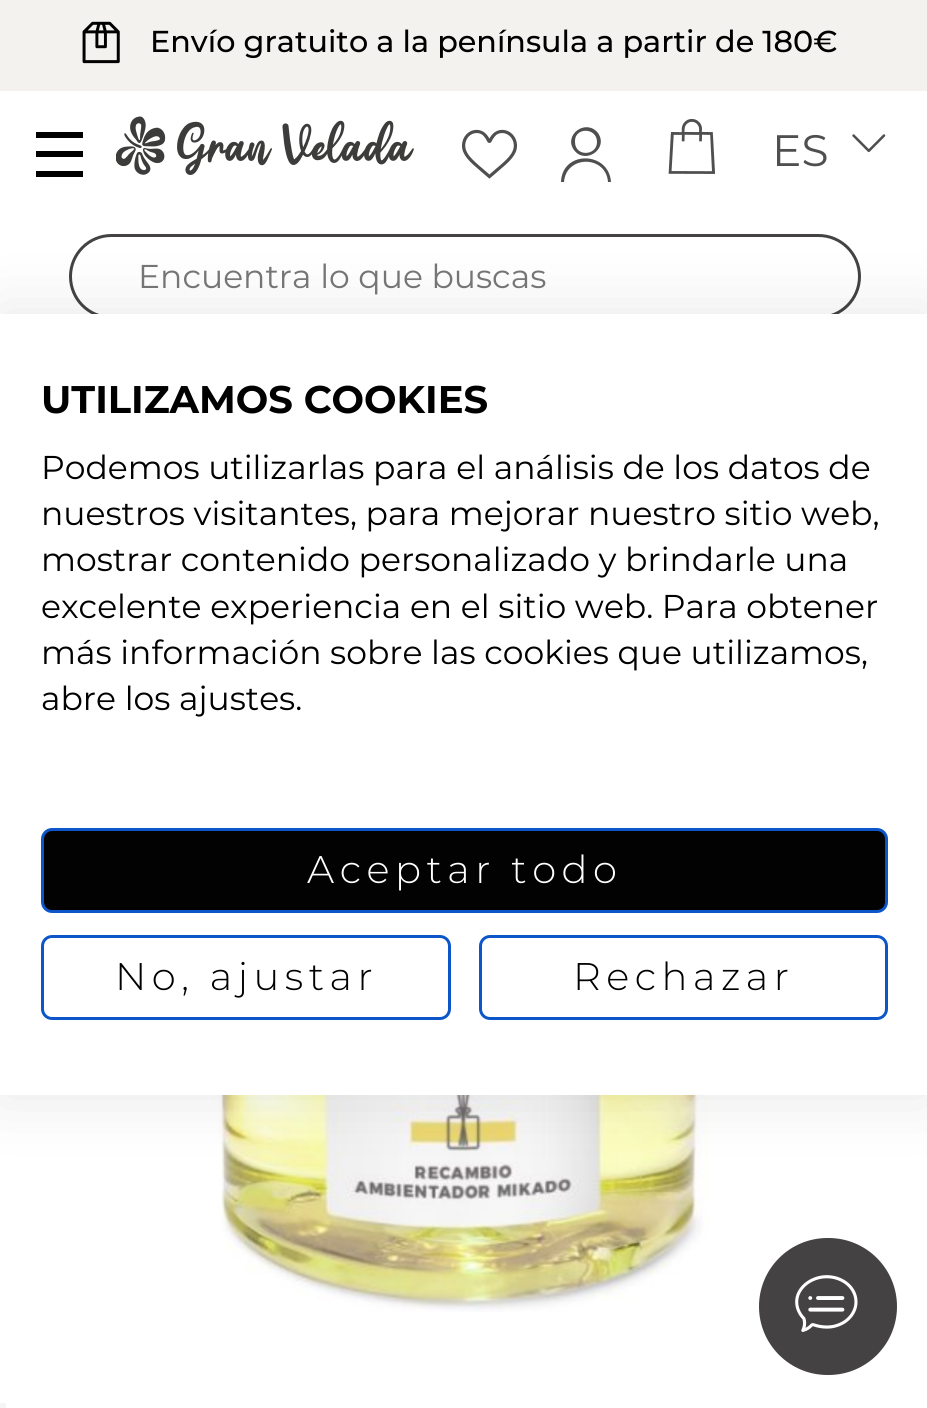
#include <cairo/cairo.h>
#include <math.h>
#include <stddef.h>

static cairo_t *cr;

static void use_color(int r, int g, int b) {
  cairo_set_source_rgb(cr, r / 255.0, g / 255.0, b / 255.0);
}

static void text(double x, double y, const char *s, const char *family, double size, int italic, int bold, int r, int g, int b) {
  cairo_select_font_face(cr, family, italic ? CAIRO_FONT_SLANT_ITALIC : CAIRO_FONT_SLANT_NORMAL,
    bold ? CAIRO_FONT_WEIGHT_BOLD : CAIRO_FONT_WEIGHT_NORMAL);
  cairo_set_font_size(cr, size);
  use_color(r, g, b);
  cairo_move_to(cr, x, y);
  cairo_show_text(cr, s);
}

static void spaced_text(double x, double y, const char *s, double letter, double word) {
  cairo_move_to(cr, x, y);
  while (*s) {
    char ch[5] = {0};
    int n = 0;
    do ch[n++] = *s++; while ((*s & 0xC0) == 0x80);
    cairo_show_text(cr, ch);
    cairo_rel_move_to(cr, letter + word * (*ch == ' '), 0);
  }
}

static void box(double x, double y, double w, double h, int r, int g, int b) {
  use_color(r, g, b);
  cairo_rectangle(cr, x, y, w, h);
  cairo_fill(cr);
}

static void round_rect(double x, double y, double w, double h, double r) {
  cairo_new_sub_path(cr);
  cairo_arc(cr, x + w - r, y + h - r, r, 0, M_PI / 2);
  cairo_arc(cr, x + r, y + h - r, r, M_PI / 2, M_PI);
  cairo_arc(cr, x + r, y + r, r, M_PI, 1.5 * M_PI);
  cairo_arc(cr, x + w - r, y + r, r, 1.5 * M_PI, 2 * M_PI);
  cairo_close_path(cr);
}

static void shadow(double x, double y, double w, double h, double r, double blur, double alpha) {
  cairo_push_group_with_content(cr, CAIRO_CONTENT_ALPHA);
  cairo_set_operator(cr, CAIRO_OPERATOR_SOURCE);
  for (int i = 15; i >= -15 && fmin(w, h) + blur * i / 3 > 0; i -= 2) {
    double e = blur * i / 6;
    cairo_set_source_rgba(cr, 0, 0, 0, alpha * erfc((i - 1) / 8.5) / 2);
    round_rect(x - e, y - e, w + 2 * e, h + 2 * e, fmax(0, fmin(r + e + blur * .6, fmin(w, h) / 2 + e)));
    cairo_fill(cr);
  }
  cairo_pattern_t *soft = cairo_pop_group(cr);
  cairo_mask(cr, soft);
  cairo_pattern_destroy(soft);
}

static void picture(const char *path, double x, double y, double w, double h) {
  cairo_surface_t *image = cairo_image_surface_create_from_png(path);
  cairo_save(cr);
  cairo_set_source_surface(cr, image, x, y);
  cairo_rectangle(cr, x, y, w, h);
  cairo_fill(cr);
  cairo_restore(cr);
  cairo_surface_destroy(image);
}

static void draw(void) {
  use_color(255, 255, 255);
  cairo_paint(cr);
  box(0, 0, 927, 91, 243, 242, 238);
  picture("img_01.png", 82, 21, 38, 43);
  picture("img_02.png", 462, 129, 55, 50);
  use_color(80, 79, 79);
  cairo_new_path(cr);
  cairo_move_to(cr, 611, 182);
  cairo_line_to(cr, 608, 182);
  cairo_curve_to(cr, 606, 155, 566, 155, 564, 182);
  cairo_line_to(cr, 561, 182);
  cairo_curve_to(cr, 562, 150, 609, 151, 611, 182);
  cairo_close_path(cr);
  cairo_move_to(cr, 574, 150);
  cairo_curve_to(cr, 563, 135, 586, 118, 598, 133);
  cairo_curve_to(cr, 609, 149, 585, 165, 574, 150);
  cairo_close_path(cr);
  cairo_move_to(cr, 575, 142);
  cairo_curve_to(cr, 575, 157, 597, 156, 597, 142);
  cairo_curve_to(cr, 597, 127, 574, 127, 575, 142);
  cairo_close_path(cr);
  cairo_fill(cr);
  picture("img_03.png", 668, 118, 47, 56);
  picture("img_04.png", 852, 134, 34, 19);
  box(36, 132, 47, 6, 0, 0, 0);
  box(36, 151, 47, 6, 0, 0, 0);
  box(36, 171, 47, 6, 0, 0, 0);
  picture("img_05.png", 116, 116, 298, 59);
  round_rect(70.5, 235.5, 789, 82, 41);
  use_color(68, 66, 66);
  cairo_set_line_width(cr, 3);
  cairo_stroke(cr);
  round_rect(759, 1238, 138, 137, 68.5);
  cairo_fill(cr);
  picture("img_06.png", 795, 1275, 63, 57);
  picture("img_07.png", 213, 1095, 497, 217);
  use_color(0, 0, 0);
  shadow(0, 314, 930, 781, 0, 33, 0.1);
  box(0, 314, 927, 781, 255, 255, 255);
  use_color(2, 2, 2);
  round_rect(42.5, 829.5, 844, 82, 9.5);
  cairo_fill_preserve(cr);
  use_color(13, 86, 201);
  cairo_stroke(cr);
  round_rect(42.5, 936.5, 407, 82, 9.5);
  cairo_stroke(cr);
  round_rect(480.5, 936.5, 406, 82, 9.5);
  cairo_stroke(cr);
  box(0, 1403, 6, 5, 245, 245, 245);
  text(150, 52, "Envío gratuito a la península a partir de 180€", "Montserrat Medium", 30.25, 0, 0, 0, 0, 0);
  text(772, 166, "ES", "Montserrat", 44, 0, 0, 80, 79, 79);
  text(138, 288, "Encuentra lo que buscas", "Montserrat", 33, 0, 0, 117, 117, 117);
  text(41, 413, "UTILIZAMOS COOKIES", "Montserrat", 38.5, 0, 1, 0, 0, 0);
  text(41, 479, "Podemos utilizarlas para el análisis de los datos de", "Montserrat", 33, 0, 0, 0, 0, 0);
  text(41, 525, "nuestros visitantes, para mejorar nuestro sitio web,", "Montserrat", 33, 0, 0, 0, 0, 0);
  text(41, 571, "mostrar contenido personalizado y brindarle una", "Montserrat", 33, 0, 0, 0, 0, 0);
  text(41, 618, "excelente experiencia en el sitio web. Para obtener", "Montserrat", 33, 0, 0, 0, 0, 0);
  text(41, 664, "más información sobre las cookies que utilizamos,", "Montserrat", 33, 0, 0, 0, 0, 0);
  text(41, 710, "abre los ajustes.", "Montserrat", 33, 0, 0, 0, 0, 0);
  cairo_select_font_face(cr, "Montserrat Light", CAIRO_FONT_SLANT_NORMAL, CAIRO_FONT_WEIGHT_NORMAL);
  cairo_set_font_size(cr, 38.5);
  use_color(255, 255, 255);
  spaced_text(307, 883, "Aceptar todo", 5.5, 0);
  use_color(0, 0, 0);
  spaced_text(115, 990, "No, ajustar", 5.5, 0);
  spaced_text(573, 990, "Rechazar", 5.5, 0);
}

int main(void) {
  cairo_surface_t *surface = cairo_image_surface_create(CAIRO_FORMAT_RGB24, 927, 1408);
  cr = cairo_create(surface);
  cairo_font_options_t *options = cairo_font_options_create();
  cairo_font_options_set_hint_metrics(options, CAIRO_HINT_METRICS_OFF);
  cairo_font_options_set_hint_style(options, CAIRO_HINT_STYLE_NONE);
  cairo_set_font_options(cr, options);
  cairo_set_miter_limit(cr, 4);
  draw();
  cairo_surface_write_to_png(surface, "out.png");
  cairo_font_options_destroy(options);
  cairo_destroy(cr);
  cairo_surface_destroy(surface);
  return 0;
}
